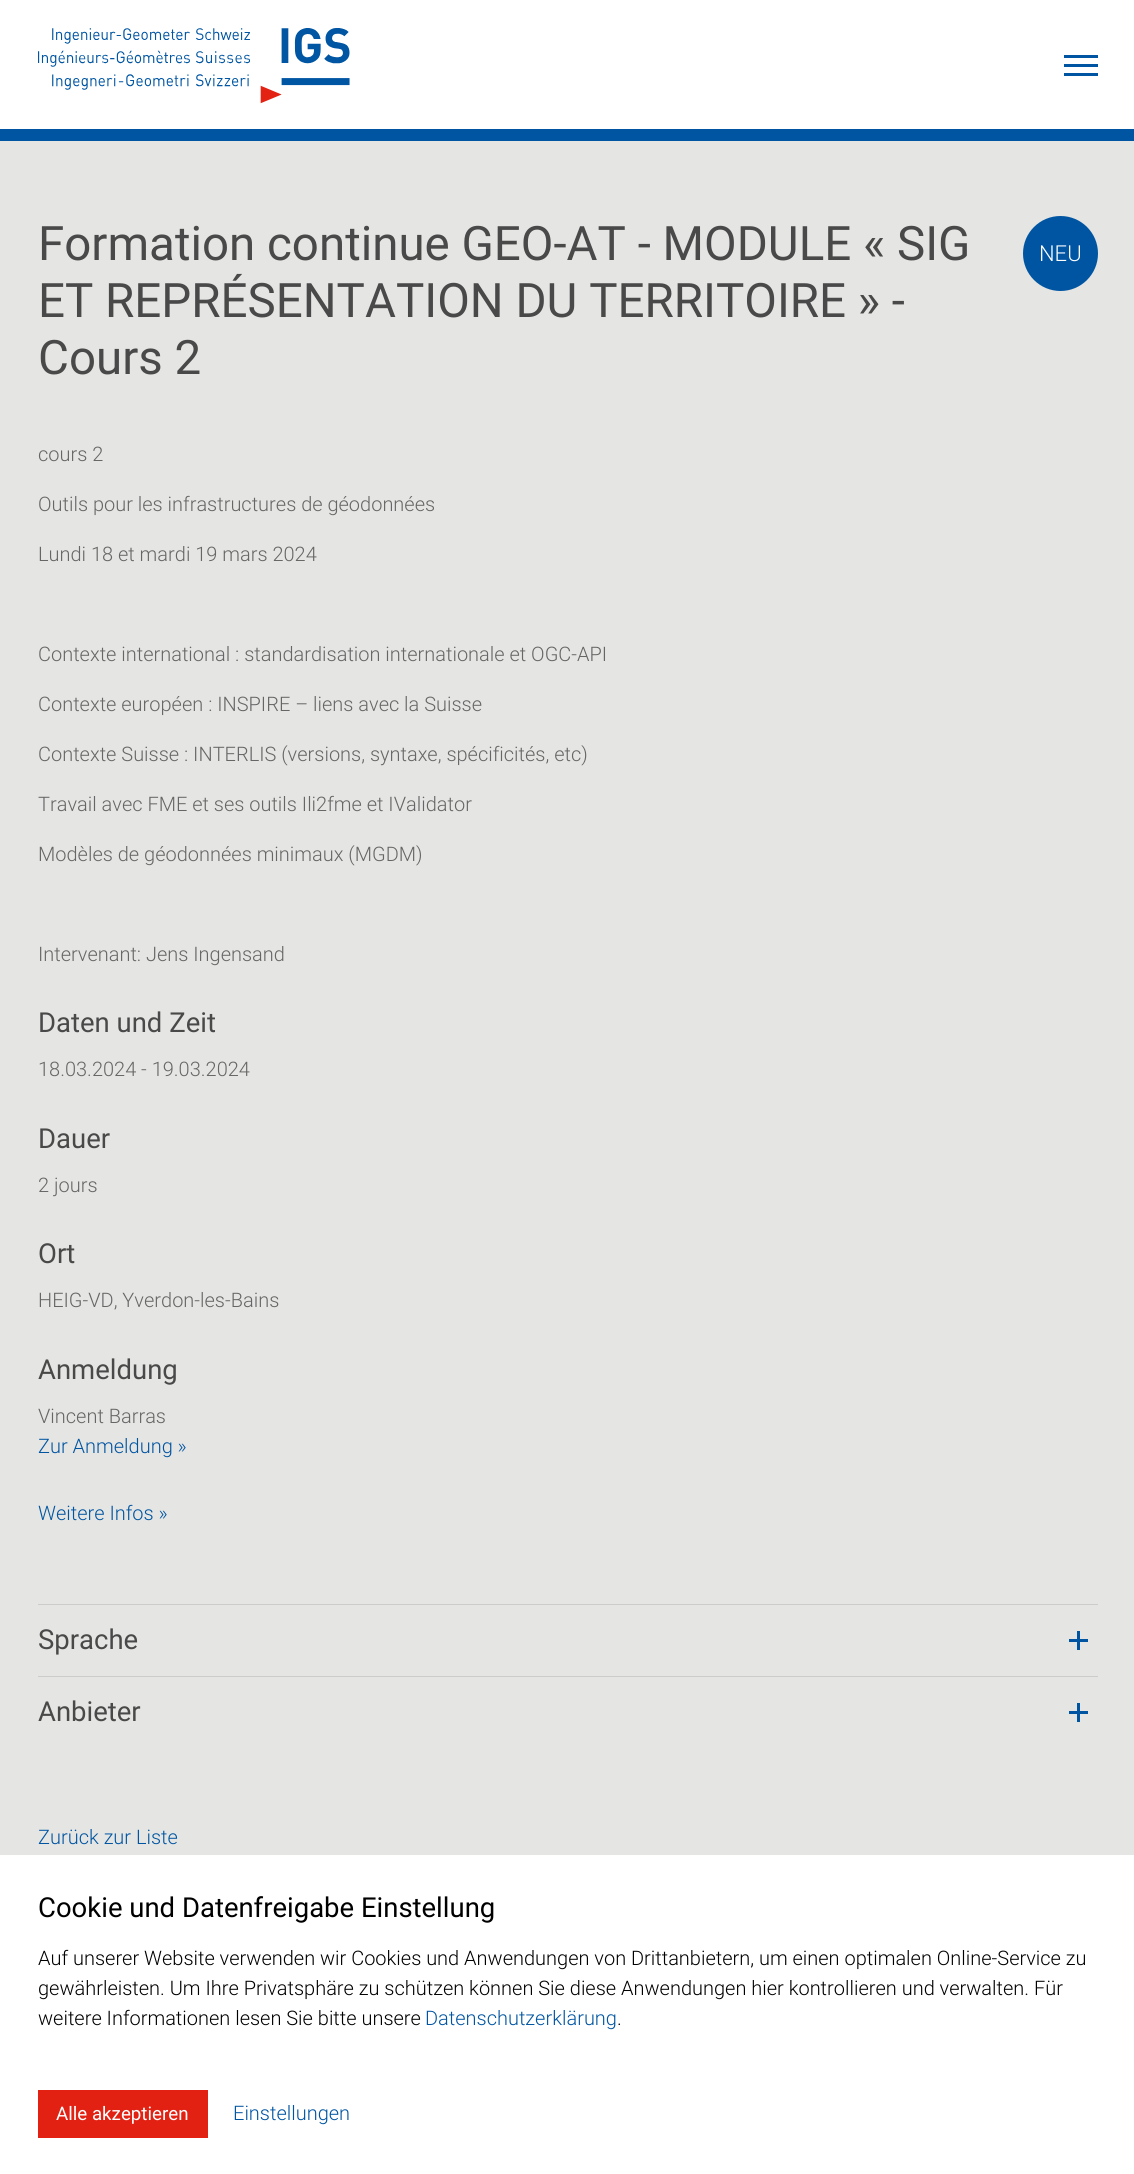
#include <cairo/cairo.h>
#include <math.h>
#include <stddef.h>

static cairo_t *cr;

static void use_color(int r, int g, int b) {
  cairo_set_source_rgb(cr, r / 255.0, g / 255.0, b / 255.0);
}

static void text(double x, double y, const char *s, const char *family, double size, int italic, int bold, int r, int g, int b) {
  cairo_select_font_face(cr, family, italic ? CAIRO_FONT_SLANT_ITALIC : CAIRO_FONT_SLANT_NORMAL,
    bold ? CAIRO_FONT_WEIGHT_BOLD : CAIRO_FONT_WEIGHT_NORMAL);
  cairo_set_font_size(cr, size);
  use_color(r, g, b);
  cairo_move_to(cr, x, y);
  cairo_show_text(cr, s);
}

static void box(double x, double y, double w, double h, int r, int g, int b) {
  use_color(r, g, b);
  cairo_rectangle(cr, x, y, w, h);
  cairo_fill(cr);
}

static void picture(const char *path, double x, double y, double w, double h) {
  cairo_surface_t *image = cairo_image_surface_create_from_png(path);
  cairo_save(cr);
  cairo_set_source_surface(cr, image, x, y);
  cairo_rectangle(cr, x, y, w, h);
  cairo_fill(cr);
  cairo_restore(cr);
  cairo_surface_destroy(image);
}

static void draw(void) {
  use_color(229, 229, 227);
  cairo_paint(cr);
  box(0, 0, 1134, 129, 255, 255, 255);
  picture("img_01.png", 38, 28, 312, 76);
  box(1064, 55, 34, 3, 0, 85, 162);
  box(1064, 64, 34, 3, 0, 85, 162);
  box(1064, 73, 34, 3, 0, 85, 162);
  box(0, 129, 1134, 12, 0, 85, 162);
  cairo_arc(cr, 1060.5, 253.5, 37.5, 0, 2 * M_PI);
  cairo_fill(cr);
  box(38, 1604, 1060, 1, 204, 204, 204);
  box(1069, 1639, 19, 3, 0, 85, 162);
  box(1077, 1631, 3, 19, 0, 85, 162);
  box(38, 1676, 1060, 1, 204, 204, 204);
  box(1069, 1711, 19, 3, 0, 85, 162);
  box(1077, 1703, 3, 19, 0, 85, 162);
  box(0, 1855, 1134, 319, 255, 255, 255);
  box(38, 2090, 170, 48, 226, 33, 19);
  text(38, 260, "Formation continue GEO-AT - MODULE « SIG", "Roboto", 47.5, 0, 0, 73, 73, 73);
  text(38, 317, "ET REPRÉSENTATION DU TERRITOIRE » -", "Roboto", 47.5, 0, 0, 73, 73, 73);
  text(38, 374, "Cours 2", "Roboto", 47.5, 0, 0, 73, 73, 73);
  text(1039, 261, "NEU", "Roboto Light", 22, 0, 0, 255, 255, 255);
  text(38, 461, "cours 2", "Roboto Light", 20, 0, 0, 102, 102, 102);
  text(38, 511, "Outils pour les infrastructures de géodonnées", "Roboto Light", 20, 0, 0, 102, 102, 102);
  text(38, 561, "Lundi 18 et mardi 19 mars 2024", "Roboto Light", 20, 0, 0, 102, 102, 102);
  text(38, 661, "Contexte international : standardisation internationale et OGC-API", "Roboto Light", 20, 0, 0, 102, 102, 102);
  text(38, 711, "Contexte européen : INSPIRE – liens avec la Suisse", "Roboto Light", 20, 0, 0, 102, 102, 102);
  text(38, 761, "Contexte Suisse : INTERLIS (versions, syntaxe, spécificités, etc)", "Roboto Light", 20, 0, 0, 102, 102, 102);
  text(38, 811, "Travail avec FME et ses outils Ili2fme et IValidator", "Roboto Light", 20, 0, 0, 102, 102, 102);
  text(38, 861, "Modèles de géodonnées minimaux (MGDM)", "Roboto Light", 20, 0, 0, 102, 102, 102);
  text(38, 961, "Intervenant: Jens Ingensand", "Roboto Light", 20, 0, 0, 102, 102, 102);
  text(38, 1032, "Daten und Zeit", "Roboto", 27.5, 0, 0, 73, 73, 73);
  text(38, 1076, "18.03.2024 - 19.03.2024", "Roboto Light", 20, 0, 0, 102, 102, 102);
  text(38, 1148, "Dauer", "Roboto", 27.5, 0, 0, 73, 73, 73);
  text(38, 1192, "2 jours", "Roboto Light", 20, 0, 0, 102, 102, 102);
  text(38, 1263, "Ort", "Roboto", 27.5, 0, 0, 73, 73, 73);
  text(38, 1307, "HEIG-VD, Yverdon-les-Bains", "Roboto Light", 20, 0, 0, 102, 102, 102);
  text(38, 1379, "Anmeldung", "Roboto", 27.5, 0, 0, 73, 73, 73);
  text(38, 1423, "Vincent Barras", "Roboto Light", 20, 0, 0, 102, 102, 102);
  text(38, 1453, "Zur Anmeldung »", "Roboto Light", 20, 0, 0, 0, 85, 162);
  text(38, 1520, "Weitere Infos »", "Roboto Light", 20, 0, 0, 0, 85, 162);
  text(38, 1649, "Sprache", "Roboto", 27.5, 0, 0, 73, 73, 73);
  text(38, 1721, "Anbieter", "Roboto", 27.5, 0, 0, 73, 73, 73);
  text(38, 1844, "Zurück zur Liste", "Roboto Light", 20, 0, 0, 0, 85, 162);
  text(38, 1917, "Cookie und Datenfreigabe Einstellung", "Roboto", 27.5, 0, 0, 0, 0, 0);
  text(38, 1965, "Auf unserer Website verwenden wir Cookies und Anwendungen von Drittanbietern, um einen optimalen Online-Service zu", "Roboto Light", 20, 0, 0, 0, 0, 0);
  text(38, 1995, "gewährleisten. Um Ihre Privatsphäre zu schützen können Sie diese Anwendungen hier kontrollieren und verwalten. Für", "Roboto Light", 20, 0, 0, 0, 0, 0);
  text(38, 2025, "weitere Informationen lesen Sie bitte unsere", "Roboto Light", 20, 0, 0, 0, 0, 0);
  text(425, 2025, "Datenschutzerklärung", "Roboto Light", 20, 0, 0, 0, 85, 162);
  text(617, 2025, ".", "Roboto Light", 20, 0, 0, 0, 0, 0);
  text(56, 2120, "Alle akzeptieren", "Roboto", 18.75, 0, 0, 255, 255, 255);
  text(233, 2120, "Einstellungen", "Roboto Light", 20, 0, 0, 0, 85, 162);
}

int main(void) {
  cairo_surface_t *surface = cairo_image_surface_create(CAIRO_FORMAT_RGB24, 1134, 2174);
  cr = cairo_create(surface);
  cairo_font_options_t *options = cairo_font_options_create();
  cairo_font_options_set_hint_metrics(options, CAIRO_HINT_METRICS_OFF);
  cairo_font_options_set_hint_style(options, CAIRO_HINT_STYLE_NONE);
  cairo_set_font_options(cr, options);
  cairo_set_miter_limit(cr, 4);
  draw();
  cairo_surface_write_to_png(surface, "out.png");
  cairo_font_options_destroy(options);
  cairo_destroy(cr);
  cairo_surface_destroy(surface);
  return 0;
}
